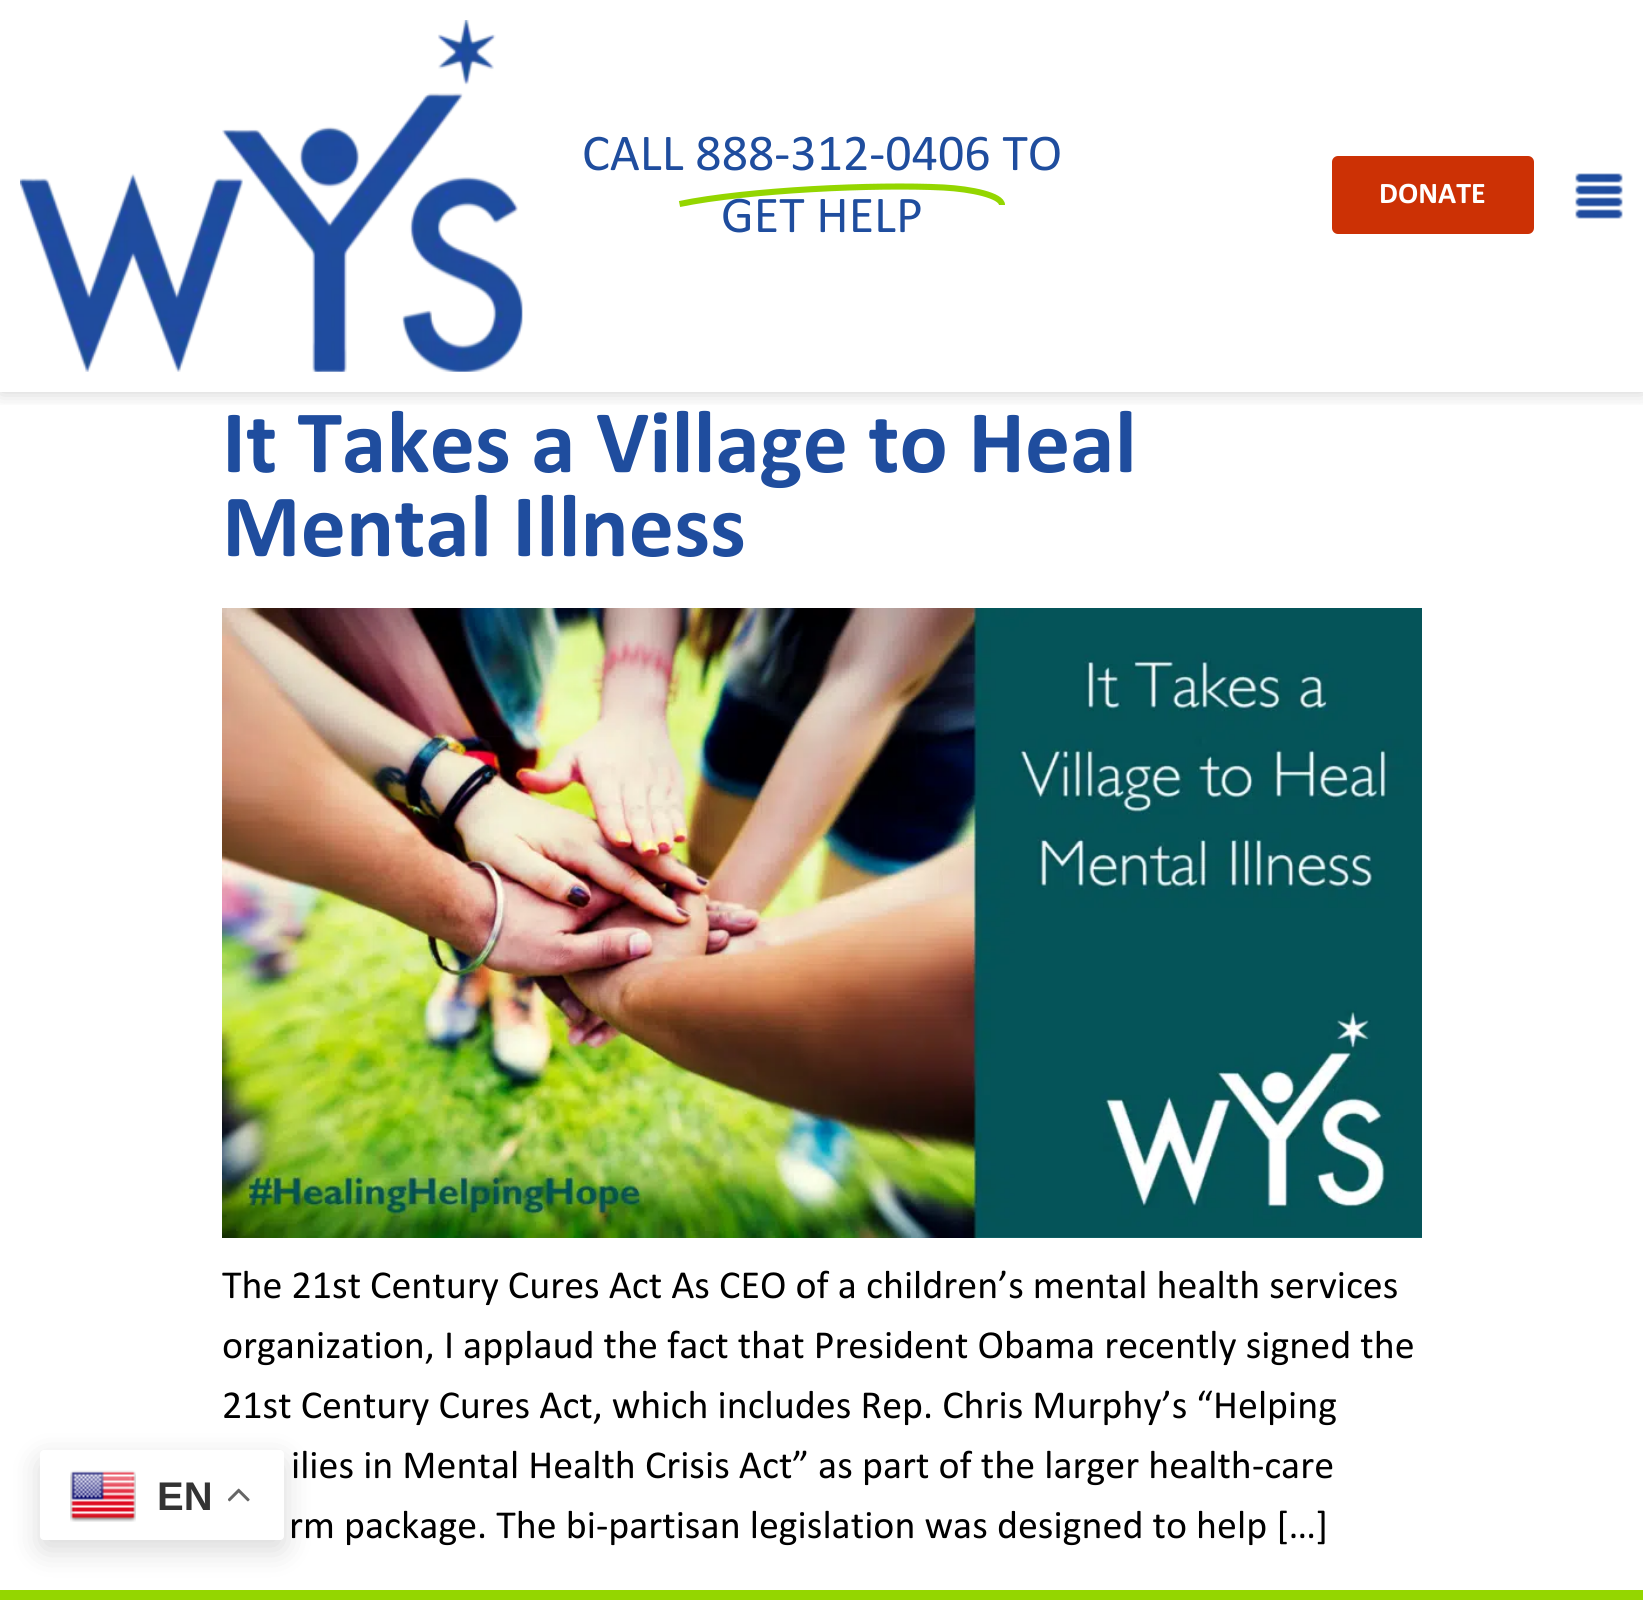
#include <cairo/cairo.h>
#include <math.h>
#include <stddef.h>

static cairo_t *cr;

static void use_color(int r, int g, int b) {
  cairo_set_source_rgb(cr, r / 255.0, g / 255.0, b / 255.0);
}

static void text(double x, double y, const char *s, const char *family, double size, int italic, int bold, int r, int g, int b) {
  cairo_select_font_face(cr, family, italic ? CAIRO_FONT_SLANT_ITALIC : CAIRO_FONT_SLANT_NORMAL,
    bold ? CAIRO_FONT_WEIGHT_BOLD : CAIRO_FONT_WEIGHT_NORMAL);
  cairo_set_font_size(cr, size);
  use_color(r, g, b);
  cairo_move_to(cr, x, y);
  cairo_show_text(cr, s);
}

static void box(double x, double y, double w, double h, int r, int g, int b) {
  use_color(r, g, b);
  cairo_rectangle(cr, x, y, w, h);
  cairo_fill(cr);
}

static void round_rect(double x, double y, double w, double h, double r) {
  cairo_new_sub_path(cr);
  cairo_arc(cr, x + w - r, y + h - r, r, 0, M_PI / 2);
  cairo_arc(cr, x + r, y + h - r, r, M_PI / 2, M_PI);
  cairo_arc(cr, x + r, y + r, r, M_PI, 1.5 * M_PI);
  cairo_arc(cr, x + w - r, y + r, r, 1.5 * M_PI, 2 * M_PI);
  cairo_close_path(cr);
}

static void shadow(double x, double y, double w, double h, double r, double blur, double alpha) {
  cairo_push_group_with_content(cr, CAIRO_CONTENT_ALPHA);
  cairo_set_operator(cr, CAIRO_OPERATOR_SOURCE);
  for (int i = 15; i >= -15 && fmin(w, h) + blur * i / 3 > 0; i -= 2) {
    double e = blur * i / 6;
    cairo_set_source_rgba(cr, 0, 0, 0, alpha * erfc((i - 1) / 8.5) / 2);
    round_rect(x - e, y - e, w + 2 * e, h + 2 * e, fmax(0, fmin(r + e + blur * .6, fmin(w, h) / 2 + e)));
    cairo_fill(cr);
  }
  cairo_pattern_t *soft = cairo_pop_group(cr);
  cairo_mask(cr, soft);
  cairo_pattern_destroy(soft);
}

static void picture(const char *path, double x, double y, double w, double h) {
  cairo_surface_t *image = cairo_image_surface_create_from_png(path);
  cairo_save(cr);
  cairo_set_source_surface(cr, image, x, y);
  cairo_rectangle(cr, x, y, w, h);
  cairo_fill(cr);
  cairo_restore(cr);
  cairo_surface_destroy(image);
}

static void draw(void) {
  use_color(255, 255, 255);
  cairo_paint(cr);
  cairo_save(cr);
  cairo_rectangle(cr, 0, 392, 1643, 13);
  cairo_clip(cr);
  use_color(0, 0, 0);
  shadow(0, 0, 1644, 392, 0, 10, 0.2);
  cairo_restore(cr);
  picture("img_01.png", 20, 20, 503, 352);
  cairo_new_path(cr);
  cairo_move_to(cr, 679.5, 204);
  cairo_curve_to(cr, 747.5, 190, 875.5, 184, 943.5, 187.5);
  cairo_curve_to(cr, 971.5, 189, 1002, 195.5, 1002, 205);
  use_color(148, 214, 0);
  cairo_set_line_width(cr, 6.1);
  cairo_stroke(cr);
  use_color(204, 49, 5);
  round_rect(1332, 156, 202, 78, 6);
  cairo_fill(cr);
  picture("img_02.png", 1575, 173, 48, 46);
  box(0, 1590, 1643, 10, 148, 214, 0);
  use_color(0, 0, 0);
  shadow(40, 1460, 244, 90, 4, 15, 0.15);
  use_color(255, 255, 255);
  round_rect(40, 1450, 244, 90, 4);
  cairo_fill(cr);
  picture("img_03.png", 70, 1470, 66, 52);
  picture("img_04.png", 228, 1488, 22, 14);
  picture("img_05.png", 222, 608, 1200, 630);
  text(582, 170, "CALL 888-312-0406 TO", "Calibri", 52, 0, 0, 31, 77, 158);
  text(721, 232, "GET HELP", "Calibri", 52, 0, 0, 31, 77, 158);
  text(1379, 203, "DONATE", "Calibri", 30, 0, 1, 255, 255, 255);
  text(157, 1510, "EN", "Liberation Sans", 40, 0, 1, 51, 51, 51);
  text(222, 472, "It Takes a Village to Heal", "Calibri", 90, 0, 1, 31, 77, 158);
  text(222, 556, "Mental Illness", "Calibri", 90, 0, 1, 31, 77, 158);
  text(222, 1298, "The 21st Century Cures Act As CEO of a children’s mental health services", "Calibri", 40, 0, 0, 0, 0, 0);
  text(222, 1358, "organization, I applaud the fact that President Obama recently signed the", "Calibri", 40, 0, 0, 0, 0, 0);
  text(222, 1418, "21st Century Cures Act, which includes Rep. Chris Murphy’s “Helping", "Calibri", 40, 0, 0, 0, 0, 0);
  text(291, 1478, "ilies in Mental Health Crisis Act” as part of the larger health-care", "Calibri", 40, 0, 0, 0, 0, 0);
  text(289, 1538, "rm package. The bi-partisan legislation was designed to help […]", "Calibri", 40, 0, 0, 0, 0, 0);
}

int main(void) {
  cairo_surface_t *surface = cairo_image_surface_create(CAIRO_FORMAT_RGB24, 1643, 1600);
  cr = cairo_create(surface);
  cairo_font_options_t *options = cairo_font_options_create();
  cairo_font_options_set_hint_metrics(options, CAIRO_HINT_METRICS_OFF);
  cairo_font_options_set_hint_style(options, CAIRO_HINT_STYLE_NONE);
  cairo_set_font_options(cr, options);
  cairo_set_miter_limit(cr, 4);
  draw();
  cairo_surface_write_to_png(surface, "out.png");
  cairo_font_options_destroy(options);
  cairo_destroy(cr);
  cairo_surface_destroy(surface);
  return 0;
}
